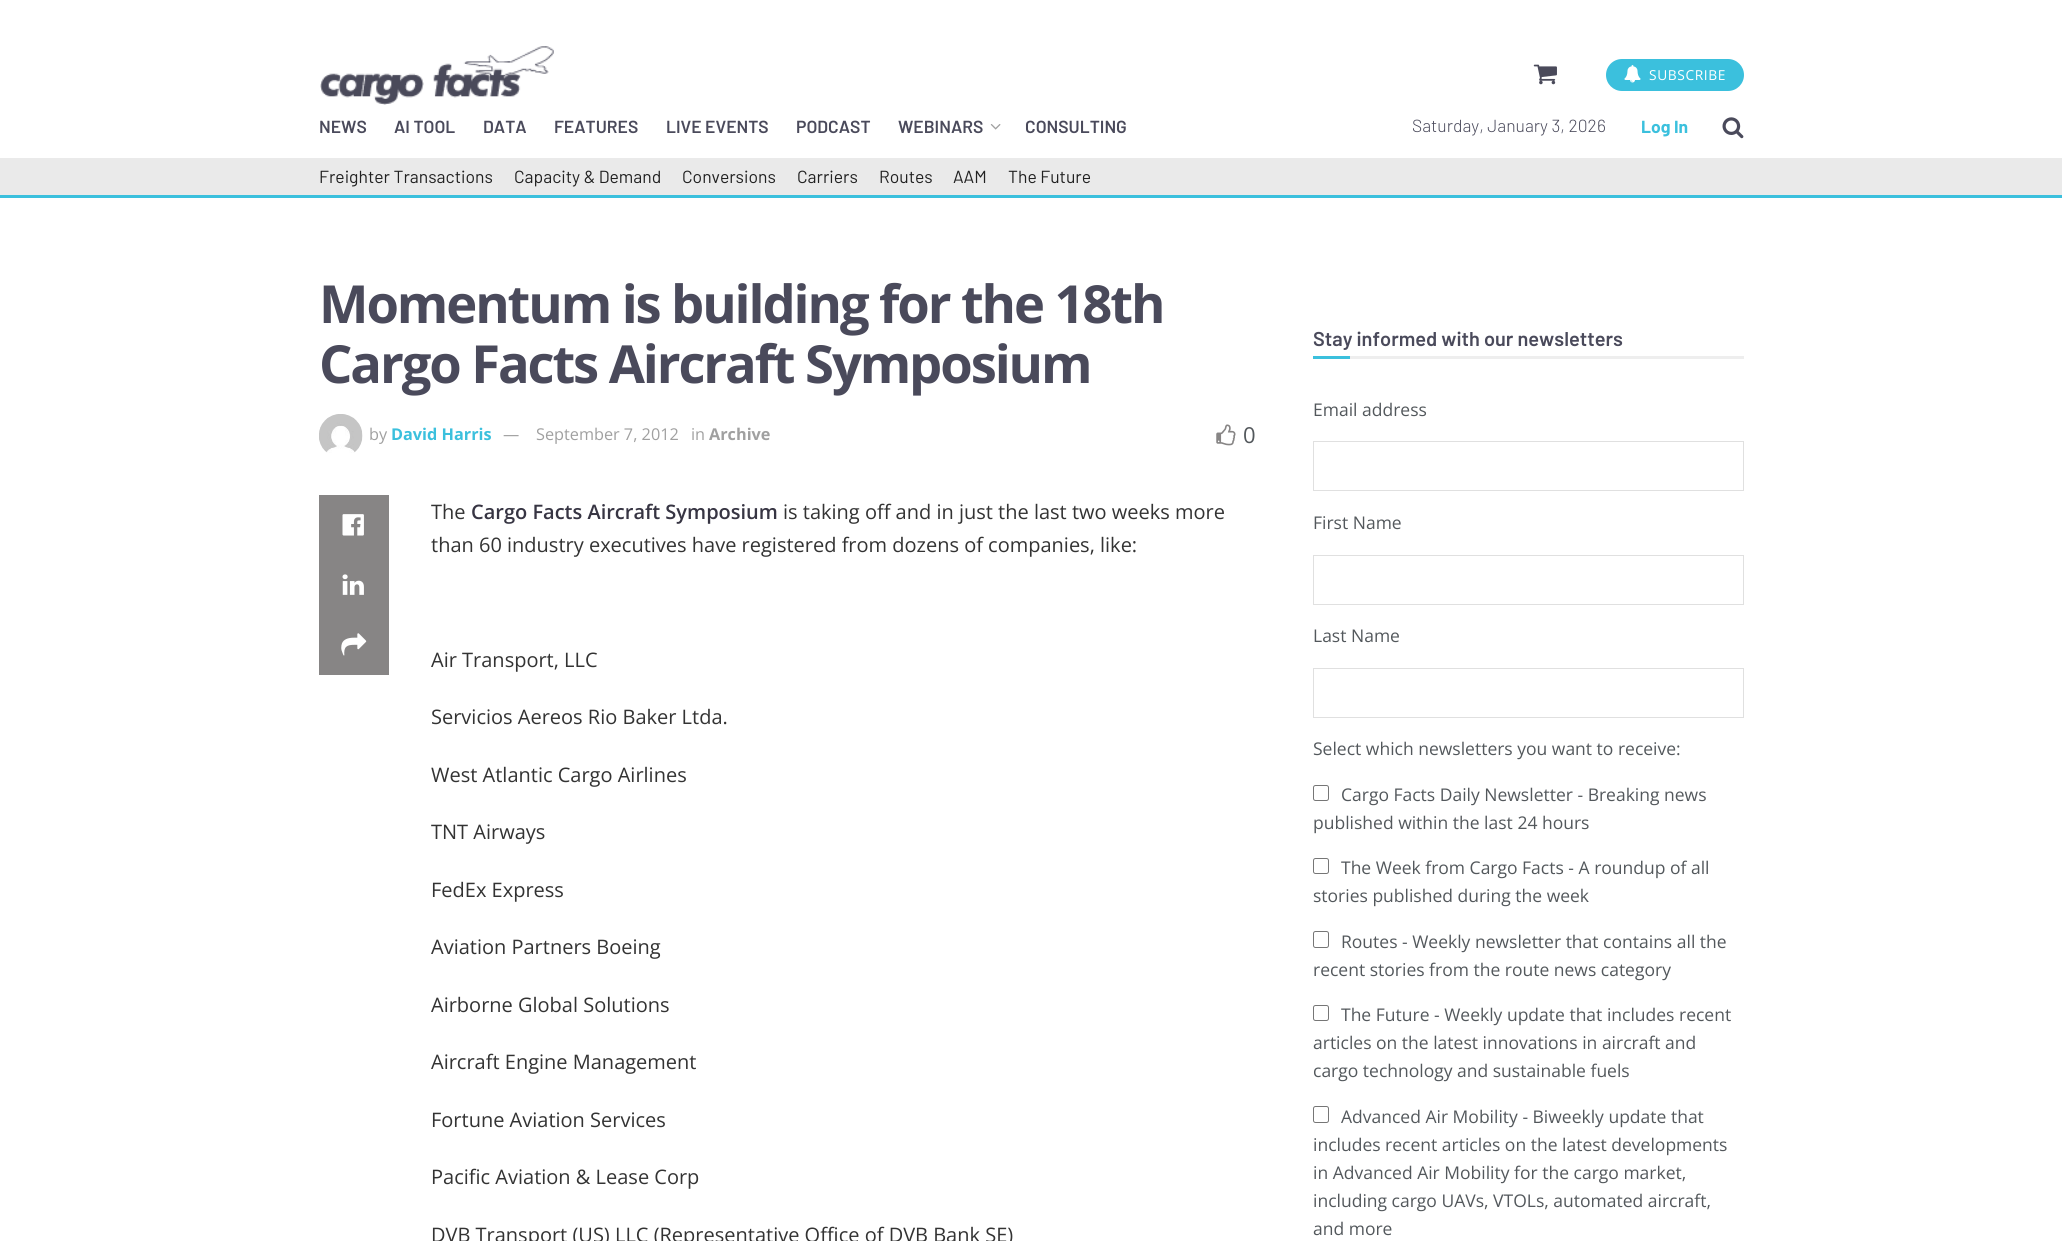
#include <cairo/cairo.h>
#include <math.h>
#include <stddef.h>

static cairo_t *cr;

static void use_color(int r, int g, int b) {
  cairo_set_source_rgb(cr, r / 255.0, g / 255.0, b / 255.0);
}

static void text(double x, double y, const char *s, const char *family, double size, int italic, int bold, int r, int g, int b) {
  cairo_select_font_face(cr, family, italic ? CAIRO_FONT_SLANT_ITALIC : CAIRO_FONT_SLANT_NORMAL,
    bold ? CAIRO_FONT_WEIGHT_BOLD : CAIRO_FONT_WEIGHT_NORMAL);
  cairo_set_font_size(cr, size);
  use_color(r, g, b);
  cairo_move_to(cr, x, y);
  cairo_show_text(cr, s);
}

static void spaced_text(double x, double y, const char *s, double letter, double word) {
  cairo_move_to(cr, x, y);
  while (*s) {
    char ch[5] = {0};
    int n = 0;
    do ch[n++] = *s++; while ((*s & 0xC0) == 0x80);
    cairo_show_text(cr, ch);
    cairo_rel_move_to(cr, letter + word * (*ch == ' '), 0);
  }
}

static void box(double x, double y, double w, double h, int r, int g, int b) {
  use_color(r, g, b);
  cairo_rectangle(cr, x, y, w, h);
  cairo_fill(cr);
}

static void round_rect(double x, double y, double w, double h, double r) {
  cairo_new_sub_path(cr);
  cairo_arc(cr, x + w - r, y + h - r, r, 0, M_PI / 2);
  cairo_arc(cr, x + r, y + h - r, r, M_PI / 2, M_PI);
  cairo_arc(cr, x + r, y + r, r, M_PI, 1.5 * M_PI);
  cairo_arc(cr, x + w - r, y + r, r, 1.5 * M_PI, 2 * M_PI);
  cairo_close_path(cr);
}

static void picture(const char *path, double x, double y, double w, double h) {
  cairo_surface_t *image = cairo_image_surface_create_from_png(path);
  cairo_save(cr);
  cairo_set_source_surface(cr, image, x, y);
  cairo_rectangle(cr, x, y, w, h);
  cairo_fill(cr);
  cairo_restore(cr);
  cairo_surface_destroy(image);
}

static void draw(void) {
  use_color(255, 255, 255);
  cairo_paint(cr);
  picture("img_01.png", 320, 46, 234, 59);
  picture("img_02.png", 1533, 64, 24, 21);
  use_color(59, 192, 221);
  round_rect(1606, 59, 138, 32, 16);
  cairo_fill(cr);
  picture("img_03.png", 1624, 65, 17, 18);
  picture("img_04.png", 990, 124, 11, 6);
  picture("img_05.png", 1722, 117, 22, 22);
  box(0, 158, 2062, 37, 234, 234, 234);
  box(0, 195, 2062, 3, 59, 192, 221);
  picture("img_06.png", 319, 414, 44, 39);
  picture("img_07.png", 1216, 424, 20, 22);
  box(319, 495, 70, 180, 135, 133, 133);
  picture("img_08.png", 342, 514, 22, 22);
  picture("img_09.png", 342, 574, 22, 21);
  picture("img_10.png", 341, 633, 26, 23);
  box(1350, 356, 394, 3, 238, 238, 238);
  box(1313, 356, 37, 3, 59, 192, 221);
  cairo_rectangle(cr, 1313.5, 441.5, 430, 49);
  use_color(224, 224, 224);
  cairo_set_line_width(cr, 1);
  cairo_stroke(cr);
  cairo_rectangle(cr, 1313.5, 555.5, 430, 49);
  cairo_stroke(cr);
  cairo_rectangle(cr, 1313.5, 668.5, 430, 49);
  cairo_stroke(cr);
  round_rect(1313.5, 785.5, 15, 15, 2);
  use_color(118, 118, 118);
  cairo_stroke(cr);
  round_rect(1313.5, 858.5, 15, 15, 2);
  cairo_stroke(cr);
  round_rect(1313.5, 931.5, 15, 16, 2);
  cairo_stroke(cr);
  round_rect(1313.5, 1005.5, 15, 15, 2);
  cairo_stroke(cr);
  round_rect(1313.5, 1106.5, 15, 16, 2);
  cairo_stroke(cr);
  cairo_select_font_face(cr, "Open Sans", CAIRO_FONT_SLANT_NORMAL, CAIRO_FONT_WEIGHT_NORMAL);
  cairo_set_font_size(cr, 13.75);
  use_color(255, 255, 255);
  spaced_text(1649, 80, "SUBSCRIBE", 0.6, 0);
  text(319, 133, "NEWS", "Barlow SemiBold", 17.5, 0, 0, 74, 74, 91);
  text(394, 133, "AI TOOL", "Barlow SemiBold", 17.5, 0, 0, 74, 74, 91);
  text(483, 133, "DATA", "Barlow SemiBold", 17.5, 0, 0, 74, 74, 91);
  text(554, 133, "FEATURES", "Barlow SemiBold", 17.5, 0, 0, 74, 74, 91);
  text(666, 133, "LIVE EVENTS", "Barlow SemiBold", 17.5, 0, 0, 74, 74, 91);
  text(796, 133, "PODCAST", "Barlow SemiBold", 17.5, 0, 0, 74, 74, 91);
  text(898, 133, "WEBINARS", "Barlow SemiBold", 17.5, 0, 0, 74, 74, 91);
  text(1025, 133, "CONSULTING", "Barlow SemiBold", 17.5, 0, 0, 74, 74, 91);
  text(1412, 132, "Saturday, January 3, 2026", "Barlow Light", 17.5, 0, 0, 74, 74, 91);
  text(1641, 133, "Log In", "Barlow", 17.5, 0, 1, 59, 192, 221);
  text(319, 183, "Freighter Transactions", "Barlow", 17.5, 0, 0, 33, 33, 33);
  text(514, 183, "Capacity & Demand", "Barlow", 17.5, 0, 0, 33, 33, 33);
  text(682, 183, "Conversions", "Barlow", 17.5, 0, 0, 33, 33, 33);
  text(797, 183, "Carriers", "Barlow", 17.5, 0, 0, 33, 33, 33);
  text(879, 183, "Routes", "Barlow", 17.5, 0, 0, 33, 33, 33);
  text(953, 183, "AAM", "Barlow", 17.5, 0, 0, 33, 33, 33);
  text(1008, 183, "The Future", "Barlow", 17.5, 0, 0, 33, 33, 33);
  cairo_select_font_face(cr, "Open Sans", CAIRO_FONT_SLANT_NORMAL, CAIRO_FONT_WEIGHT_BOLD);
  cairo_set_font_size(cr, 52.5);
  use_color(74, 74, 91);
  spaced_text(319, 323, "Momentum is building for the 18th", -2.1, 0);
  spaced_text(319, 383, "Cargo Facts Aircraft Symposium", -2.1, 0);
  text(369, 440, "by", "Open Sans", 16.25, 0, 0, 160, 160, 160);
  text(391, 440, "David Harris", "Open Sans", 16.25, 0, 1, 59, 192, 221);
  text(503, 440, "—", "Open Sans", 16.25, 0, 0, 160, 160, 160);
  text(536, 440, "September 7, 2012", "Open Sans", 16.25, 0, 0, 160, 160, 160);
  text(691, 440, "in", "Open Sans", 16.25, 0, 0, 160, 160, 160);
  text(709, 440, "Archive", "Open Sans", 16.25, 0, 1, 160, 160, 160);
  text(1243, 443, "0", "Open Sans", 22, 0, 0, 83, 88, 92);
  text(431, 519, "The", "Open Sans", 20, 0, 0, 51, 51, 51);
  text(471, 519, "Cargo Facts Aircraft Symposium", "Open Sans SemiBold", 20, 0, 0, 55, 53, 67);
  text(783, 519, "is taking off and in just the last two weeks more", "Open Sans", 20, 0, 0, 51, 51, 51);
  text(431, 552, "than 60 industry executives have registered from dozens of companies, like:", "Open Sans", 20, 0, 0, 51, 51, 51);
  text(431, 667, "Air Transport, LLC", "Open Sans", 20, 0, 0, 51, 51, 51);
  text(431, 724, "Servicios Aereos Rio Baker Ltda.", "Open Sans", 20, 0, 0, 51, 51, 51);
  text(431, 782, "West Atlantic Cargo Airlines", "Open Sans", 20, 0, 0, 51, 51, 51);
  text(431, 839, "TNT Airways", "Open Sans", 20, 0, 0, 51, 51, 51);
  text(431, 897, "FedEx Express", "Open Sans", 20, 0, 0, 51, 51, 51);
  text(431, 954, "Aviation Partners Boeing", "Open Sans", 20, 0, 0, 51, 51, 51);
  text(431, 1012, "Airborne Global Solutions", "Open Sans", 20, 0, 0, 51, 51, 51);
  text(431, 1069, "Aircraft Engine Management", "Open Sans", 20, 0, 0, 51, 51, 51);
  text(431, 1127, "Fortune Aviation Services", "Open Sans", 20, 0, 0, 51, 51, 51);
  text(431, 1184, "Pacific Aviation & Lease Corp", "Open Sans", 20, 0, 0, 51, 51, 51);
  text(431, 1242, "DVB Transport (US) LLC (Representative Office of DVB Bank SE)", "Open Sans", 20, 0, 0, 51, 51, 51);
  text(1313, 346, "Stay informed with our newsletters", "Barlow SemiBold", 20, 0, 0, 74, 74, 91);
  text(1313, 416, "Email address", "Open Sans", 17.5, 0, 0, 83, 88, 92);
  text(1313, 529, "First Name", "Open Sans", 17.5, 0, 0, 83, 88, 92);
  text(1313, 642, "Last Name", "Open Sans", 17.5, 0, 0, 83, 88, 92);
  text(1313, 755, "Select which newsletters you want to receive:", "Open Sans", 17.5, 0, 0, 83, 88, 92);
  text(1341, 801, "Cargo Facts Daily Newsletter - Breaking news", "Open Sans", 17.5, 0, 0, 83, 88, 92);
  text(1313, 829, "published within the last 24 hours", "Open Sans", 17.5, 0, 0, 83, 88, 92);
  text(1341, 874, "The Week from Cargo Facts - A roundup of all", "Open Sans", 17.5, 0, 0, 83, 88, 92);
  text(1313, 902, "stories published during the week", "Open Sans", 17.5, 0, 0, 83, 88, 92);
  text(1341, 948, "Routes - Weekly newsletter that contains all the", "Open Sans", 17.5, 0, 0, 83, 88, 92);
  text(1313, 976, "recent stories from the route news category", "Open Sans", 17.5, 0, 0, 83, 88, 92);
  text(1341, 1021, "The Future - Weekly update that includes recent", "Open Sans", 17.5, 0, 0, 83, 88, 92);
  text(1313, 1049, "articles on the latest innovations in aircraft and", "Open Sans", 17.5, 0, 0, 83, 88, 92);
  text(1313, 1077, "cargo technology and sustainable fuels", "Open Sans", 17.5, 0, 0, 83, 88, 92);
  text(1341, 1123, "Advanced Air Mobility - Biweekly update that", "Open Sans", 17.5, 0, 0, 83, 88, 92);
  text(1313, 1151, "includes recent articles on the latest developments", "Open Sans", 17.5, 0, 0, 83, 88, 92);
  text(1313, 1179, "in Advanced Air Mobility for the cargo market,", "Open Sans", 17.5, 0, 0, 83, 88, 92);
  text(1313, 1207, "including cargo UAVs, VTOLs, automated aircraft,", "Open Sans", 17.5, 0, 0, 83, 88, 92);
  text(1313, 1235, "and more", "Open Sans", 17.5, 0, 0, 83, 88, 92);
}

int main(void) {
  cairo_surface_t *surface = cairo_image_surface_create(CAIRO_FORMAT_RGB24, 2062, 1241);
  cr = cairo_create(surface);
  cairo_font_options_t *options = cairo_font_options_create();
  cairo_font_options_set_hint_metrics(options, CAIRO_HINT_METRICS_OFF);
  cairo_font_options_set_hint_style(options, CAIRO_HINT_STYLE_NONE);
  cairo_set_font_options(cr, options);
  cairo_set_miter_limit(cr, 4);
  draw();
  cairo_surface_write_to_png(surface, "out.png");
  cairo_font_options_destroy(options);
  cairo_destroy(cr);
  cairo_surface_destroy(surface);
  return 0;
}
